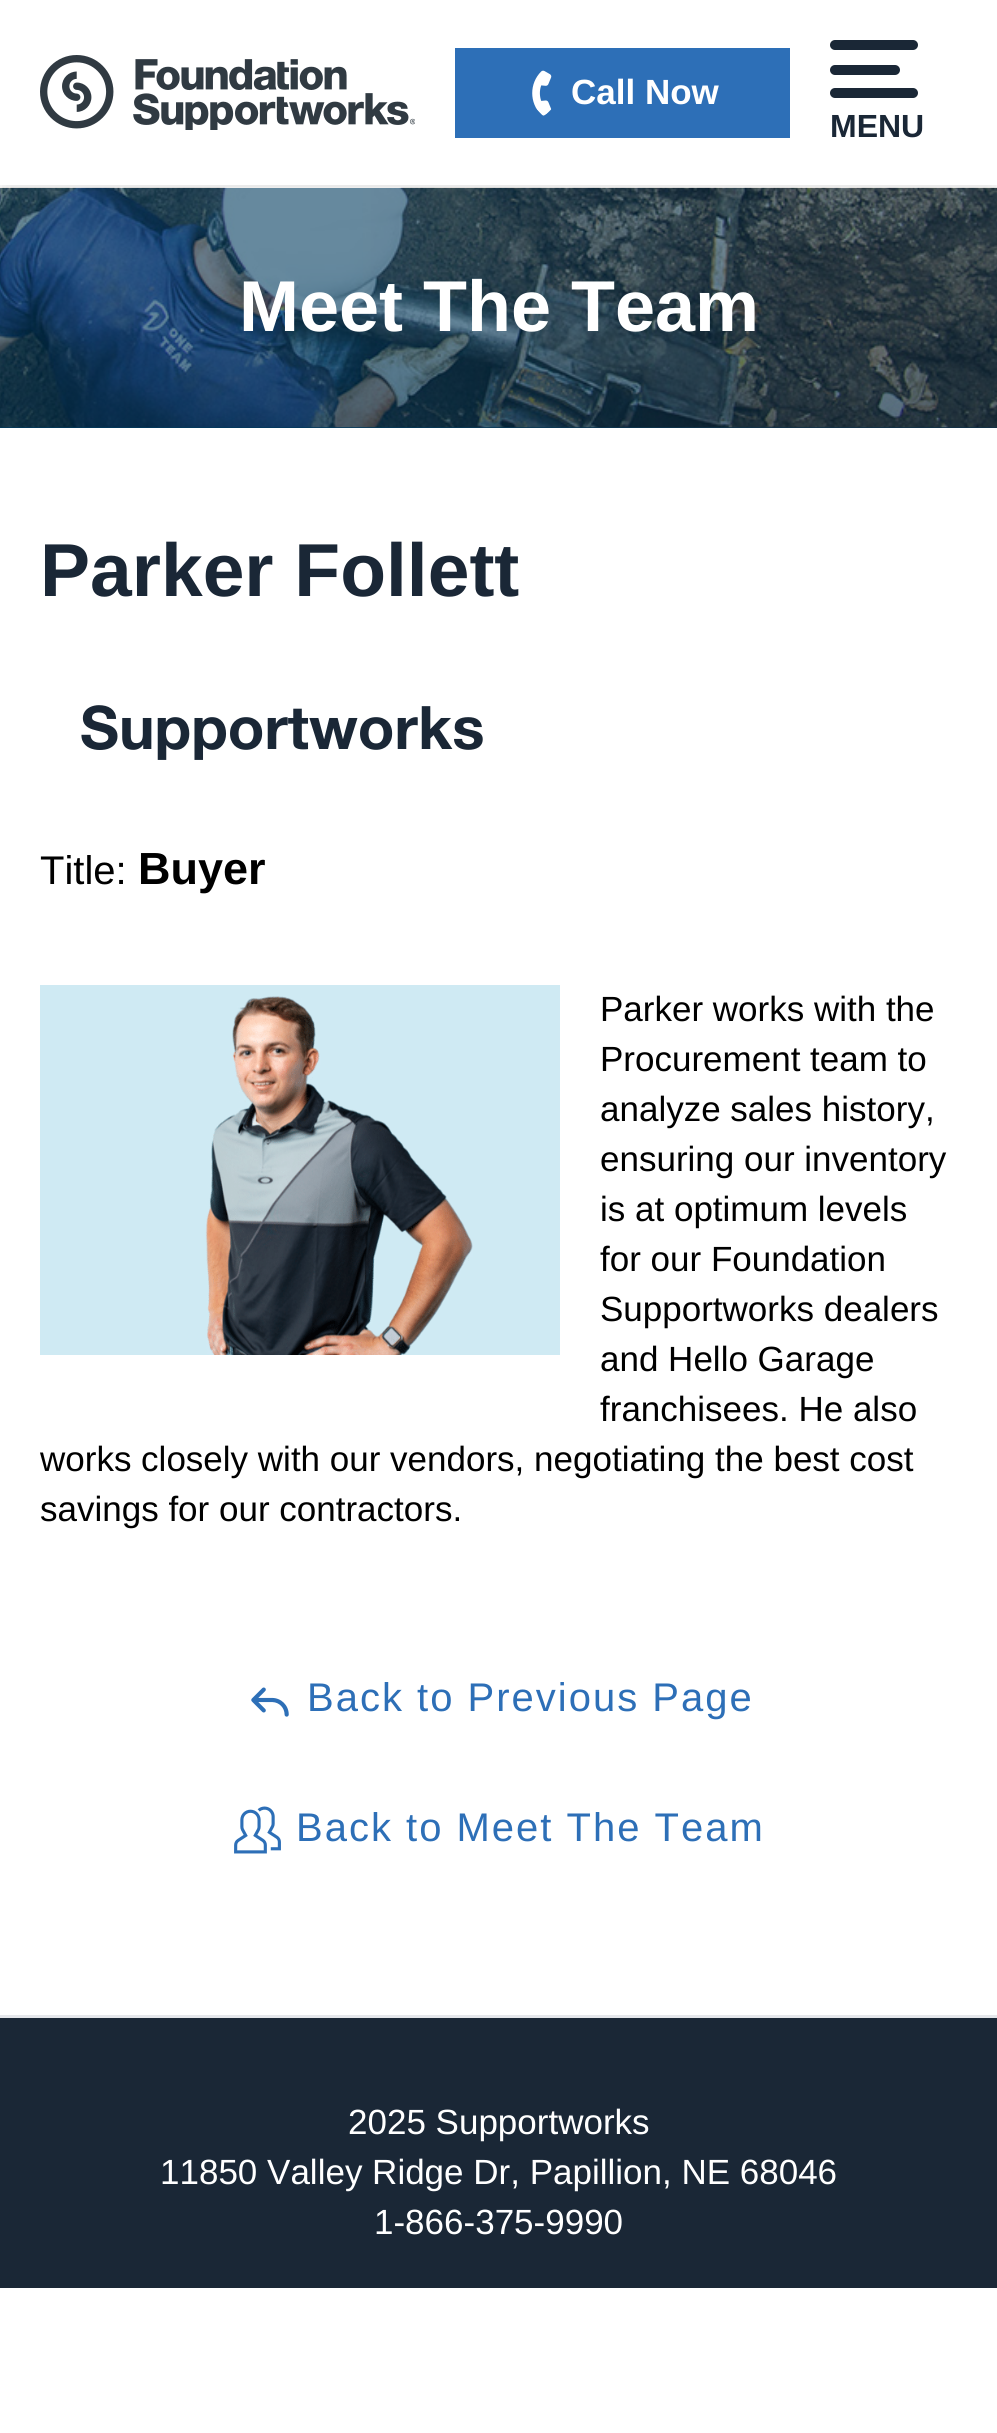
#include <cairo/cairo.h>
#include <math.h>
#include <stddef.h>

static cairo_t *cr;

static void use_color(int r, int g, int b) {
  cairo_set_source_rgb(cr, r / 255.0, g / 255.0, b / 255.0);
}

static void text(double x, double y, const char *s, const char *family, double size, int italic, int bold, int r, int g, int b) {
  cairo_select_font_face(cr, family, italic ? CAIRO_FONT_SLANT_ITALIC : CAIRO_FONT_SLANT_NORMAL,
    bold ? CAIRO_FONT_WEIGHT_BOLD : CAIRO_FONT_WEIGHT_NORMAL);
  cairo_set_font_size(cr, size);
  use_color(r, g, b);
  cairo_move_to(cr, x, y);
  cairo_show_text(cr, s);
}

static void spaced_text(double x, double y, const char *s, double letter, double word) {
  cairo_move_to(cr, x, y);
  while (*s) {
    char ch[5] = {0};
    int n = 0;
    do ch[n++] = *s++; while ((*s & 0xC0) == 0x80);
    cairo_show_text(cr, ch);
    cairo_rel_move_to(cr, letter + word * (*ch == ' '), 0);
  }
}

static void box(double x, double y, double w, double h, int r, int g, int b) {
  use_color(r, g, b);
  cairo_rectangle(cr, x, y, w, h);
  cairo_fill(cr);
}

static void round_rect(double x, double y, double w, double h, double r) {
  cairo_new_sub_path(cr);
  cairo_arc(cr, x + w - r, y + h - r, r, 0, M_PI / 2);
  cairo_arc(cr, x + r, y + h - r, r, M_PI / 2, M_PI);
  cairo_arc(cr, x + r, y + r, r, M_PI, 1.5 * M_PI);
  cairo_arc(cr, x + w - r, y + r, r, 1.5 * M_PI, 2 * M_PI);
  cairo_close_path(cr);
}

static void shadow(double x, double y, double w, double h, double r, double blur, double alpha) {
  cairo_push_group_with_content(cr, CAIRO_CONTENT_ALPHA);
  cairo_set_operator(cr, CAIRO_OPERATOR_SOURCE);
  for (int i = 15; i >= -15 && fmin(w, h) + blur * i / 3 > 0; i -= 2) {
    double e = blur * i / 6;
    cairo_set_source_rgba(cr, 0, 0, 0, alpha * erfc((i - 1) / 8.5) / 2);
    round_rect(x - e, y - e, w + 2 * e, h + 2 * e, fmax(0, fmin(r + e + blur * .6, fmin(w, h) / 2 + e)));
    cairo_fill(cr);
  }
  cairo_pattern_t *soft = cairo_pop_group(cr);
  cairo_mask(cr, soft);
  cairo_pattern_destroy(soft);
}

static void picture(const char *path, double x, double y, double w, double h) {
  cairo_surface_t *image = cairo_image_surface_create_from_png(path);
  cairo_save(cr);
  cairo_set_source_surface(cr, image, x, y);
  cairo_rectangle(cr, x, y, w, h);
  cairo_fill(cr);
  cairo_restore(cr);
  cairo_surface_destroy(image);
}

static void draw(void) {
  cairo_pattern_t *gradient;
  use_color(255, 255, 255);
  cairo_paint(cr);
  cairo_save(cr);
  cairo_rectangle(cr, 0, 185, 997, 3);
  cairo_clip(cr);
  use_color(0, 0, 0);
  shadow(0, 13, 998, 185, 0, 12.5, 0.1);
  cairo_restore(cr);
  picture("img_01.png", 40, 55, 375, 75);
  box(455, 48, 335, 90, 45, 111, 183);
  picture("img_02.png", 532, 70, 20, 46);
  use_color(26, 39, 54);
  round_rect(830, 40, 88, 10, 5);
  cairo_fill(cr);
  round_rect(830, 65, 70, 10, 5);
  cairo_fill(cr);
  round_rect(830, 88, 88, 10, 5);
  cairo_fill(cr);
  gradient = cairo_pattern_create_linear(0, 308, 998, 307);
  cairo_pattern_add_color_stop_rgba(gradient, 0.35, 0, 0.227, 0.365, 1);
  cairo_pattern_add_color_stop_rgba(gradient, 0.8, 0.063, 0.196, 0.29, 1);
  cairo_set_source(cr, gradient);
  cairo_pattern_destroy(gradient);
  cairo_rectangle(cr, 0, 188, 997, 240);
  cairo_fill(cr);
  picture("img_03.png", 0, 187, 997, 241);
  picture("img_04.png", 40, 985, 520, 370);
  picture("img_05.png", 251, 1687, 38, 30);
  picture("img_06.png", 234, 1806, 47, 48);
  box(0, 2015, 997, 3, 229, 231, 235);
  box(0, 2018, 997, 270, 26, 39, 54);
  text(571, 104, "Call Now", "Liberation Sans", 35, 0, 1, 255, 255, 255);
  text(830, 137, "MENU", "Liberation Sans", 32, 0, 1, 26, 39, 54);
  text(239, 331, "Meet The Team", "Liberation Sans", 72, 0, 1, 255, 255, 255);
  text(40, 596, "Parker Follett", "Liberation Sans", 75, 0, 1, 26, 39, 54);
  text(80, 749, "Supportworks", "Helvetica Neue", 60, 0, 1, 26, 39, 54);
  text(40, 884, "Title:", "Liberation Sans", 40, 0, 0, 0, 0, 0);
  text(138, 884, "Buyer", "Liberation Sans", 45, 0, 1, 0, 0, 0);
  text(600, 1021, "Parker works with the", "Liberation Sans", 35, 0, 0, 0, 0, 0);
  text(600, 1071, "Procurement team to", "Liberation Sans", 35, 0, 0, 0, 0, 0);
  text(600, 1121, "analyze sales history,", "Liberation Sans", 35, 0, 0, 0, 0, 0);
  text(600, 1171, "ensuring our inventory", "Liberation Sans", 35, 0, 0, 0, 0, 0);
  text(600, 1221, "is at optimum levels", "Liberation Sans", 35, 0, 0, 0, 0, 0);
  text(600, 1271, "for our Foundation", "Liberation Sans", 35, 0, 0, 0, 0, 0);
  text(600, 1321, "Supportworks dealers", "Liberation Sans", 35, 0, 0, 0, 0, 0);
  text(600, 1371, "and Hello Garage", "Liberation Sans", 35, 0, 0, 0, 0, 0);
  text(600, 1421, "franchisees. He also", "Liberation Sans", 35, 0, 0, 0, 0, 0);
  text(40, 1471, "works closely with our vendors, negotiating the best cost", "Liberation Sans", 35, 0, 0, 0, 0, 0);
  text(40, 1521, "savings for our contractors.", "Liberation Sans", 35, 0, 0, 0, 0, 0);
  cairo_set_font_size(cr, 40);
  use_color(45, 111, 183);
  spaced_text(307, 1711, "Back to Previous Page", 2, 0);
  spaced_text(296, 1841, "Back to Meet The Team", 2, 0);
  text(348, 2134, "2025 Supportworks", "Liberation Sans", 35, 0, 0, 255, 255, 255);
  text(160, 2184, "11850 Valley Ridge Dr, Papillion, NE 68046", "Liberation Sans", 35, 0, 0, 255, 255, 255);
  text(374, 2234, "1-866-375-9990", "Liberation Sans", 35, 0, 0, 255, 255, 255);
}

int main(void) {
  cairo_surface_t *surface = cairo_image_surface_create(CAIRO_FORMAT_RGB24, 997, 2433);
  cr = cairo_create(surface);
  cairo_font_options_t *options = cairo_font_options_create();
  cairo_font_options_set_hint_metrics(options, CAIRO_HINT_METRICS_OFF);
  cairo_font_options_set_hint_style(options, CAIRO_HINT_STYLE_NONE);
  cairo_set_font_options(cr, options);
  cairo_set_miter_limit(cr, 4);
  draw();
  cairo_surface_write_to_png(surface, "out.png");
  cairo_font_options_destroy(options);
  cairo_destroy(cr);
  cairo_surface_destroy(surface);
  return 0;
}
